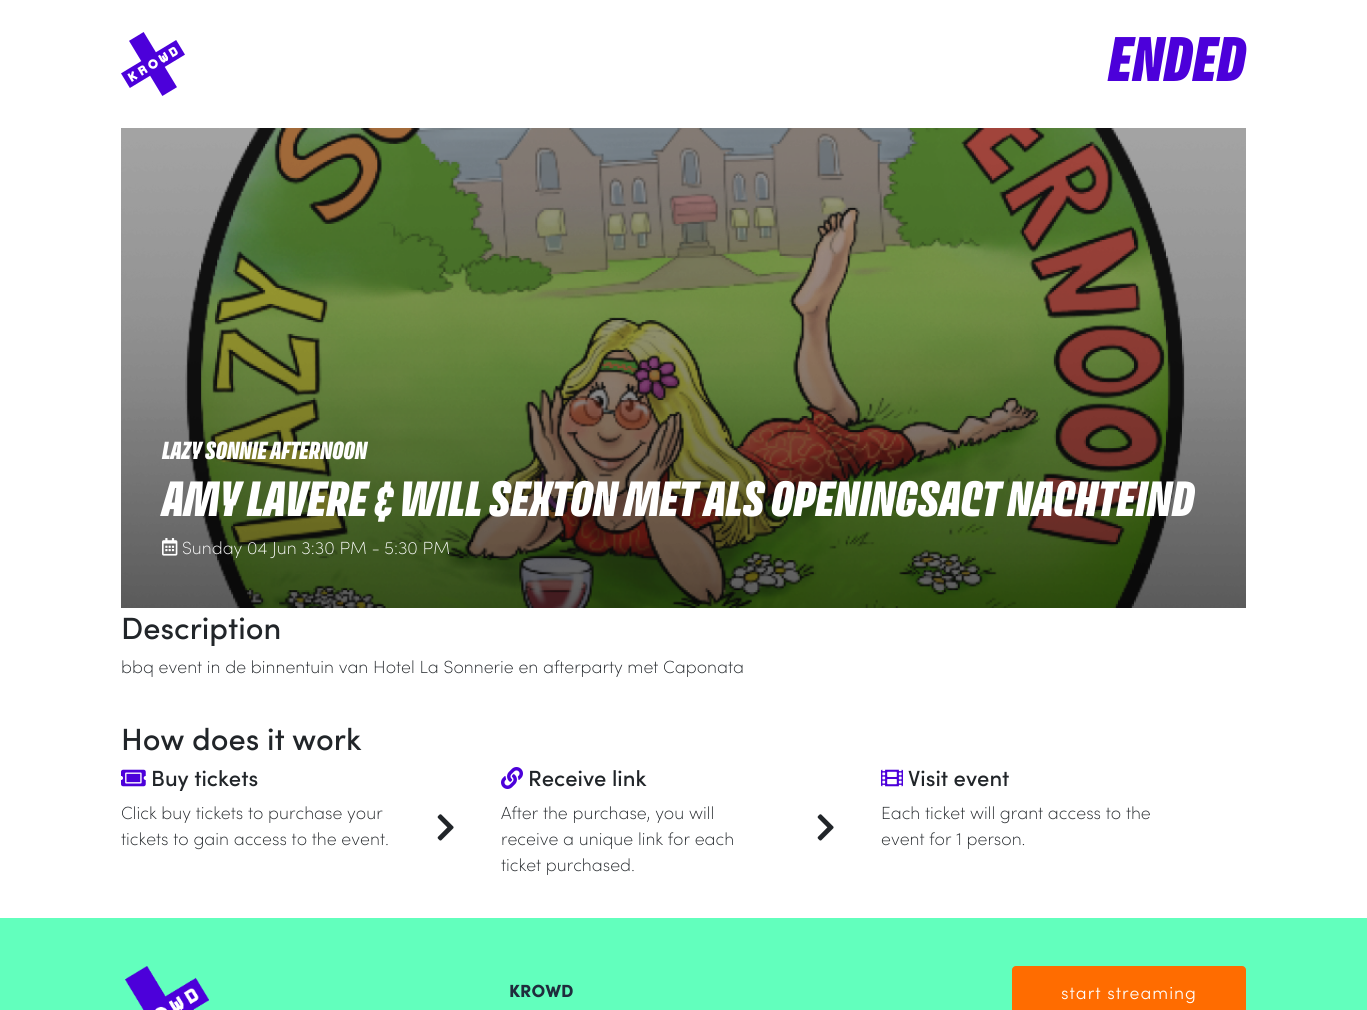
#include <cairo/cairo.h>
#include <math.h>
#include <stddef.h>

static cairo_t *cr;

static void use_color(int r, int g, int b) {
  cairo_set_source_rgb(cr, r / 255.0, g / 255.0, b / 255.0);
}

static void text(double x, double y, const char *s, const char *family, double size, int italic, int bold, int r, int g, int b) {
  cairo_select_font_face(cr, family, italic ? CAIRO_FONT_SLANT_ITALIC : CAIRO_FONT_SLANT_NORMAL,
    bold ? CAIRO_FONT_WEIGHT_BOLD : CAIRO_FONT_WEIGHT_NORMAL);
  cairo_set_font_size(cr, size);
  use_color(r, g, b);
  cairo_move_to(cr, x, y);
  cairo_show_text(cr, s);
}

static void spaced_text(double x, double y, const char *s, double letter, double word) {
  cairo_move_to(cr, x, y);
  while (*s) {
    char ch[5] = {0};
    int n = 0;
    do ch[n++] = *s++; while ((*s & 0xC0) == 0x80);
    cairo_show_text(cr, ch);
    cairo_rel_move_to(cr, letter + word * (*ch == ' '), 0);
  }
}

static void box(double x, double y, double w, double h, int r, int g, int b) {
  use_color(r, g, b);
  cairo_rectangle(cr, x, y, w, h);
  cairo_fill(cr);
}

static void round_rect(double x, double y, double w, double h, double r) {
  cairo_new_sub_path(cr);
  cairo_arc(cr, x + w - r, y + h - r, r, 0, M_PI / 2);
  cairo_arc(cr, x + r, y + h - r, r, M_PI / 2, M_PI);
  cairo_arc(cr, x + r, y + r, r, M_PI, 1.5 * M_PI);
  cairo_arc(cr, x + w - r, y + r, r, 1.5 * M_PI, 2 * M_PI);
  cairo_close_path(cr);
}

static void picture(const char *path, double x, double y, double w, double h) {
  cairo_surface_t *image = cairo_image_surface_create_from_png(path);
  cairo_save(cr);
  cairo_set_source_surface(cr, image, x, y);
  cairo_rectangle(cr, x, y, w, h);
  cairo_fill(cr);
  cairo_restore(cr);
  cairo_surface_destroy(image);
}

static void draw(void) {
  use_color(255, 255, 255);
  cairo_paint(cr);
  picture("img_01.png", 121, 32, 64, 64);
  picture("img_02.png", 121, 128, 1125, 480);
  picture("img_03.png", 162, 538, 16, 18);
  picture("img_04.png", 121, 769, 25, 18);
  picture("img_05.png", 437, 814, 17, 27);
  picture("img_06.png", 501, 767, 22, 22);
  picture("img_05.png", 817, 814, 17, 27);
  picture("img_07.png", 881, 769, 22, 18);
  box(0, 918, 1367, 92, 98, 255, 189);
  picture("img_08.png", 125, 966, 84, 44);
  use_color(255, 108, 0);
  round_rect(1012.5, 966.5, 233, 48, 3.5);
  cairo_fill_preserve(cr);
  cairo_set_line_width(cr, 1);
  cairo_stroke(cr);
  text(1108, 81, "ENDED", "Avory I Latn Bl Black", 56, 1, 0, 76, 0, 218);
  text(162, 459, "LAZY SONNIE AFTERNOON", "Avory I Latn Bl Black", 22, 1, 0, 255, 255, 255);
  text(162, 516, "AMY LAVERE & WILL SEXTON MET ALS OPENINGSACT NACHTEIND", "Avory I Latn Bl Black", 44, 1, 0, 255, 255, 255);
  text(182, 554, "Sunday 04 Jun 3:30 PM - 5:30 PM", "Sofia ExtraLight", 17.6, 0, 0, 255, 255, 255);
  text(121, 639, "Description", "Sofia Medium", 30.75, 0, 0, 33, 37, 41);
  text(121, 673, "bbq event in de binnentuin van Hotel La Sonnerie en afterparty met Caponata", "Sofia ExtraLight", 17.6, 0, 0, 33, 37, 41);
  text(121, 750, "How does it work", "Sofia Medium", 30.75, 0, 0, 33, 37, 41);
  text(151, 786, "Buy tickets", "Sofia Medium", 22, 0, 0, 33, 37, 41);
  text(121, 819, "Click buy tickets to purchase your", "Sofia ExtraLight", 17.6, 0, 0, 33, 37, 41);
  text(121, 845, "tickets to gain access to the event.", "Sofia ExtraLight", 17.6, 0, 0, 33, 37, 41);
  text(528, 786, "Receive link", "Sofia Medium", 22, 0, 0, 33, 37, 41);
  text(501, 819, "After the purchase, you will", "Sofia ExtraLight", 17.6, 0, 0, 33, 37, 41);
  text(501, 845, "receive a unique link for each", "Sofia ExtraLight", 17.6, 0, 0, 33, 37, 41);
  text(501, 871, "ticket purchased.", "Sofia ExtraLight", 17.6, 0, 0, 33, 37, 41);
  text(908, 786, "Visit event", "Sofia Medium", 22, 0, 0, 33, 37, 41);
  text(881, 819, "Each ticket will grant access to the", "Sofia ExtraLight", 17.6, 0, 0, 33, 37, 41);
  text(881, 845, "event for 1 person.", "Sofia ExtraLight", 17.6, 0, 0, 33, 37, 41);
  text(509, 997, "KROWD", "Sofia Black", 17.6, 0, 0, 31, 45, 61);
  cairo_select_font_face(cr, "Sofia Light", CAIRO_FONT_SLANT_NORMAL, CAIRO_FONT_WEIGHT_NORMAL);
  use_color(255, 255, 255);
  spaced_text(1061, 999, "start streaming", 1, 0);
}

int main(void) {
  cairo_surface_t *surface = cairo_image_surface_create(CAIRO_FORMAT_RGB24, 1367, 1010);
  cr = cairo_create(surface);
  cairo_font_options_t *options = cairo_font_options_create();
  cairo_font_options_set_hint_metrics(options, CAIRO_HINT_METRICS_OFF);
  cairo_font_options_set_hint_style(options, CAIRO_HINT_STYLE_NONE);
  cairo_set_font_options(cr, options);
  cairo_set_miter_limit(cr, 4);
  draw();
  cairo_surface_write_to_png(surface, "out.png");
  cairo_font_options_destroy(options);
  cairo_destroy(cr);
  cairo_surface_destroy(surface);
  return 0;
}
